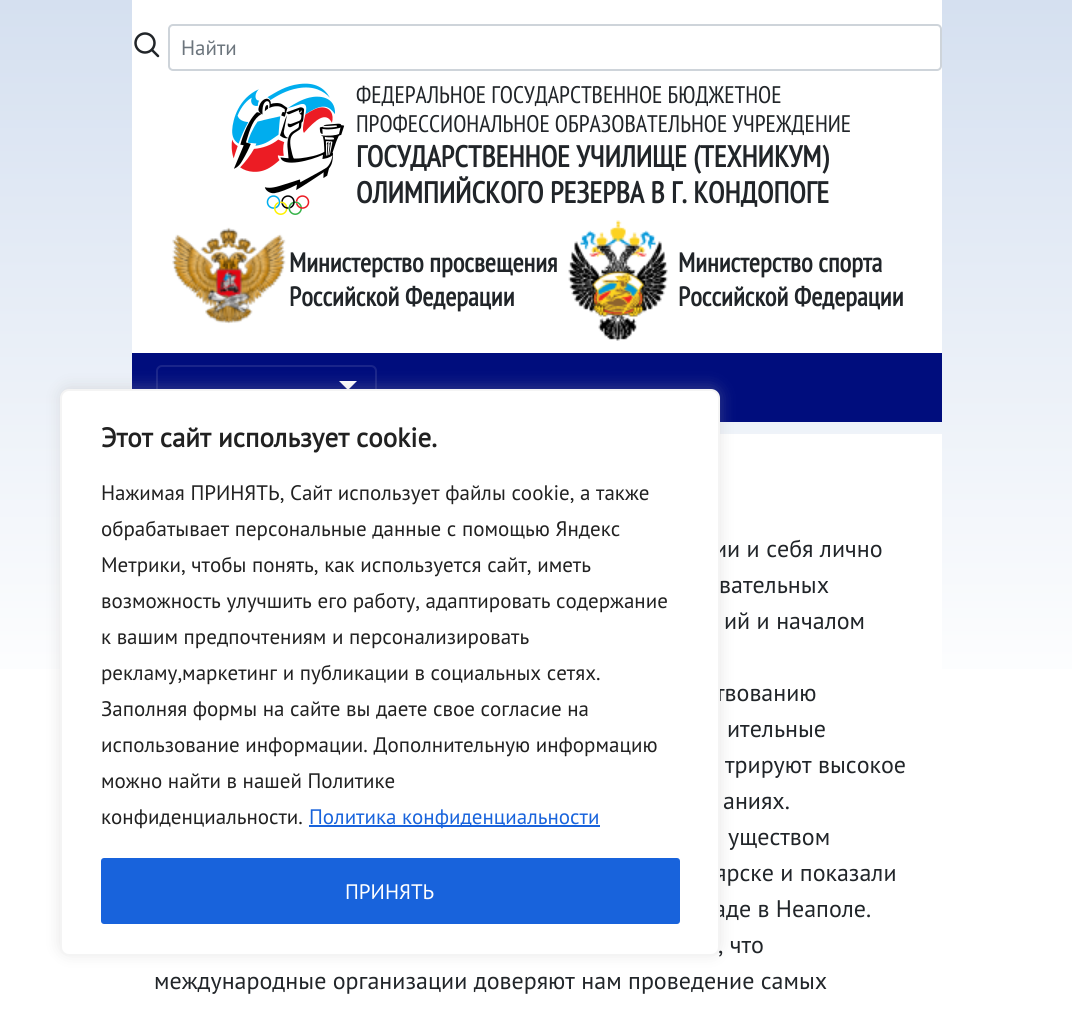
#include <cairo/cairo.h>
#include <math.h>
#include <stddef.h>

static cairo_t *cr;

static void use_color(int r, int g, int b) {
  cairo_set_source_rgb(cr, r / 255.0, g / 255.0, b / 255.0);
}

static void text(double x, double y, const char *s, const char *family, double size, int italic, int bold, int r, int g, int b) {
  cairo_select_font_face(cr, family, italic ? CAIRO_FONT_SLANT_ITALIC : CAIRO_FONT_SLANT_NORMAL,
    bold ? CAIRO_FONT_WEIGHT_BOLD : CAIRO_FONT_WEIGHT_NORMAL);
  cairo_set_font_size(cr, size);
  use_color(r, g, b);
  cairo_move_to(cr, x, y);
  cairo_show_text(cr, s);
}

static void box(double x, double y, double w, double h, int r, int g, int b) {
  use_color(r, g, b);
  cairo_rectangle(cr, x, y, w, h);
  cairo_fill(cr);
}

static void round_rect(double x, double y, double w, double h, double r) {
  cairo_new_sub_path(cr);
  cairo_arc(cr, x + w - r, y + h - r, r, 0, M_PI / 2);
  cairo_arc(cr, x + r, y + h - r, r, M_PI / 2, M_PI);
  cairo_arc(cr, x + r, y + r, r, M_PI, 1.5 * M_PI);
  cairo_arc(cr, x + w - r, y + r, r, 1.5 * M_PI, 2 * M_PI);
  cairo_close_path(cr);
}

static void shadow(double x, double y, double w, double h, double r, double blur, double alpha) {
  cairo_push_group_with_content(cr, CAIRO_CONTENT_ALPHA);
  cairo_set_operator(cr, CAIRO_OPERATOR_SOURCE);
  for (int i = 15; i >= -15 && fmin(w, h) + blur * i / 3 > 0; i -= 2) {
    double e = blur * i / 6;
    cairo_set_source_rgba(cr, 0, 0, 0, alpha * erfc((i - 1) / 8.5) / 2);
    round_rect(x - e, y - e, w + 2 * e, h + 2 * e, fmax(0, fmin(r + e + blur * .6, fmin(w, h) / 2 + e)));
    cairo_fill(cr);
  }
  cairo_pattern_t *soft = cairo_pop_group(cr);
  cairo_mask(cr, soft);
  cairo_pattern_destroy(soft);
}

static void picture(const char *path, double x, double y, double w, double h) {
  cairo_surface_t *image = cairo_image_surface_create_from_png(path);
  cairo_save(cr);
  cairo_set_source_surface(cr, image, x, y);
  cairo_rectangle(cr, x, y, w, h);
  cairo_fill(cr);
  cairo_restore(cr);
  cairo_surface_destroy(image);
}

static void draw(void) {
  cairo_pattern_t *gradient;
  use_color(255, 255, 255);
  cairo_paint(cr);
  gradient = cairo_pattern_create_linear(536, 0, 536, 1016);
  cairo_pattern_add_color_stop_rgba(gradient, 0, 0.835, 0.878, 0.941, 1);
  cairo_pattern_add_color_stop_rgba(gradient, 0.7, 1, 1, 1, 1);
  cairo_set_source(cr, gradient);
  cairo_pattern_destroy(gradient);
  cairo_rectangle(cr, 0, 0, 1072, 669);
  cairo_fill(cr);
  box(132, 0, 810, 353, 255, 255, 255);
  cairo_arc(cr, 145, 43, 9.5, 0, 2 * M_PI);
  use_color(33, 37, 41);
  cairo_set_line_width(cr, 2.5);
  cairo_stroke(cr);
  cairo_new_path(cr);
  cairo_move_to(cr, 158, 56);
  cairo_line_to(cr, 152, 50);
  cairo_set_line_cap(cr, CAIRO_LINE_CAP_ROUND);
  cairo_set_line_join(cr, CAIRO_LINE_JOIN_ROUND);
  cairo_stroke(cr);
  round_rect(169, 25, 772, 45, 4);
  use_color(206, 212, 218);
  cairo_set_line_width(cr, 2);
  cairo_set_line_cap(cr, CAIRO_LINE_CAP_BUTT);
  cairo_set_line_join(cr, CAIRO_LINE_JOIN_MITER);
  cairo_stroke(cr);
  picture("img_01.png", 231, 83, 114, 132);
  picture("img_02.png", 172, 227, 114, 97);
  picture("img_03.png", 568, 220, 100, 121);
  box(132, 353, 810, 69, 0, 13, 125);
  round_rect(157, 366, 219, 43, 5);
  use_color(26, 37, 138);
  cairo_stroke(cr);
  use_color(255, 255, 255);
  cairo_new_path(cr);
  cairo_move_to(cr, 339, 381);
  cairo_line_to(cr, 357, 381);
  cairo_line_to(cr, 348, 390);
  cairo_close_path(cr);
  cairo_fill(cr);
  box(132, 434, 810, 235, 255, 255, 255);
  use_color(172, 171, 171);
  shadow(60, 387, 660, 567, 9, 7.5, 0.3);
  text(181, 55, "Найти", "PT Sans", 21, 0, 0, 108, 117, 125);
  text(356, 103, "ФЕДЕРАЛЬНОЕ ГОСУДАРСТВЕННОЕ БЮДЖЕТНОЕ", "PT Sans Narrow", 24, 0, 0, 33, 37, 41);
  text(356, 132, "ПРОФЕССИОНАЛЬНОЕ ОБРАЗОВАТЕЛЬНОЕ УЧРЕЖДЕНИЕ", "PT Sans Narrow", 24, 0, 0, 33, 37, 41);
  text(356, 167, "ГОСУДАРСТВЕННОЕ УЧИЛИЩЕ (ТЕХНИКУМ)", "PT Sans Narrow", 30, 0, 1, 33, 37, 41);
  text(356, 203, "ОЛИМПИЙСКОГО РЕЗЕРВА В Г. КОНДОПОГЕ", "PT Sans Narrow", 30, 0, 1, 33, 37, 41);
  text(289, 272, "Министерство просвещения", "PT Sans Narrow", 27, 0, 1, 33, 37, 41);
  text(289, 306, "Российской Федерации", "PT Sans Narrow", 27, 0, 1, 33, 37, 41);
  text(678, 272, "Министерство спорта", "PT Sans Narrow", 27, 0, 1, 33, 37, 41);
  text(678, 306, "Российской Федерации", "PT Sans Narrow", 27, 0, 1, 33, 37, 41);
  text(714, 557, "ии и себя лично", "PT Sans", 24, 0, 0, 33, 37, 41);
  text(719, 593, "вательных", "PT Sans", 24, 0, 0, 33, 37, 41);
  text(724, 629, "ий и началом", "PT Sans", 24, 0, 0, 33, 37, 41);
  text(715, 701, "твованию", "PT Sans", 24, 0, 0, 33, 37, 41);
  text(727, 737, "ительные", "PT Sans", 24, 0, 0, 33, 37, 41);
  text(725, 773, "трируют высокое", "PT Sans", 24, 0, 0, 33, 37, 41);
  text(723, 809, "аниях.", "PT Sans", 24, 0, 0, 33, 37, 41);
  text(728, 845, "уществом", "PT Sans", 24, 0, 0, 33, 37, 41);
  text(715, 881, "ярске и показали", "PT Sans", 24, 0, 0, 33, 37, 41);
  text(714, 917, "аде в Неаполе.", "PT Sans", 24, 0, 0, 33, 37, 41);
  text(718, 953, ", что", "PT Sans", 24, 0, 0, 33, 37, 41);
  use_color(255, 255, 255);
  round_rect(61, 390, 658, 565, 8);
  cairo_fill_preserve(cr);
  use_color(244, 244, 244);
  cairo_stroke(cr);
  use_color(24, 99, 220);
  round_rect(102.5, 859.5, 576, 63, 1.5);
  cairo_fill_preserve(cr);
  cairo_set_line_width(cr, 3);
  cairo_stroke(cr);
  text(345, 899, "ПРИНЯТЬ", "PT Sans", 21, 0, 0, 255, 255, 255);
  box(309, 825, 291, 2, 24, 99, 220);
  text(309, 824, "Политика конфиденциальности", "PT Sans", 21, 0, 0, 24, 99, 220);
  text(101, 824, "конфиденциальности.", "PT Sans", 21, 0, 0, 33, 33, 33);
  text(101, 788, "можно найти в нашей Политике", "PT Sans", 21, 0, 0, 33, 33, 33);
  text(101, 752, "использование информации. Дополнительную информацию", "PT Sans", 21, 0, 0, 33, 33, 33);
  text(101, 716, "Заполняя формы на сайте вы даете свое согласие на", "PT Sans", 21, 0, 0, 33, 33, 33);
  text(101, 680, "рекламу,маркетинг и публикации в социальных сетях.", "PT Sans", 21, 0, 0, 33, 33, 33);
  text(101, 644, "к вашим предпочтениям и персонализировать", "PT Sans", 21, 0, 0, 33, 33, 33);
  text(101, 608, "возможность улучшить его работу, адаптировать содержание", "PT Sans", 21, 0, 0, 33, 33, 33);
  text(101, 572, "Метрики, чтобы понять, как используется сайт, иметь", "PT Sans", 21, 0, 0, 33, 33, 33);
  text(101, 536, "обрабатывает персональные данные с помощью Яндекс", "PT Sans", 21, 0, 0, 33, 33, 33);
  text(101, 500, "Нажимая ПРИНЯТЬ, Сайт использует файлы cookie, а также", "PT Sans", 21, 0, 0, 33, 33, 33);
  text(101, 447, "Этот сайт использует cookie.", "PT Sans", 27, 0, 1, 33, 33, 33);
  text(154, 989, "международные организации доверяют нам проведение самых", "PT Sans", 24, 0, 0, 33, 37, 41);
}

int main(void) {
  cairo_surface_t *surface = cairo_image_surface_create(CAIRO_FORMAT_RGB24, 1072, 1015);
  cr = cairo_create(surface);
  cairo_font_options_t *options = cairo_font_options_create();
  cairo_font_options_set_hint_metrics(options, CAIRO_HINT_METRICS_OFF);
  cairo_font_options_set_hint_style(options, CAIRO_HINT_STYLE_NONE);
  cairo_set_font_options(cr, options);
  cairo_set_miter_limit(cr, 4);
  draw();
  cairo_surface_write_to_png(surface, "out.png");
  cairo_font_options_destroy(options);
  cairo_destroy(cr);
  cairo_surface_destroy(surface);
  return 0;
}
